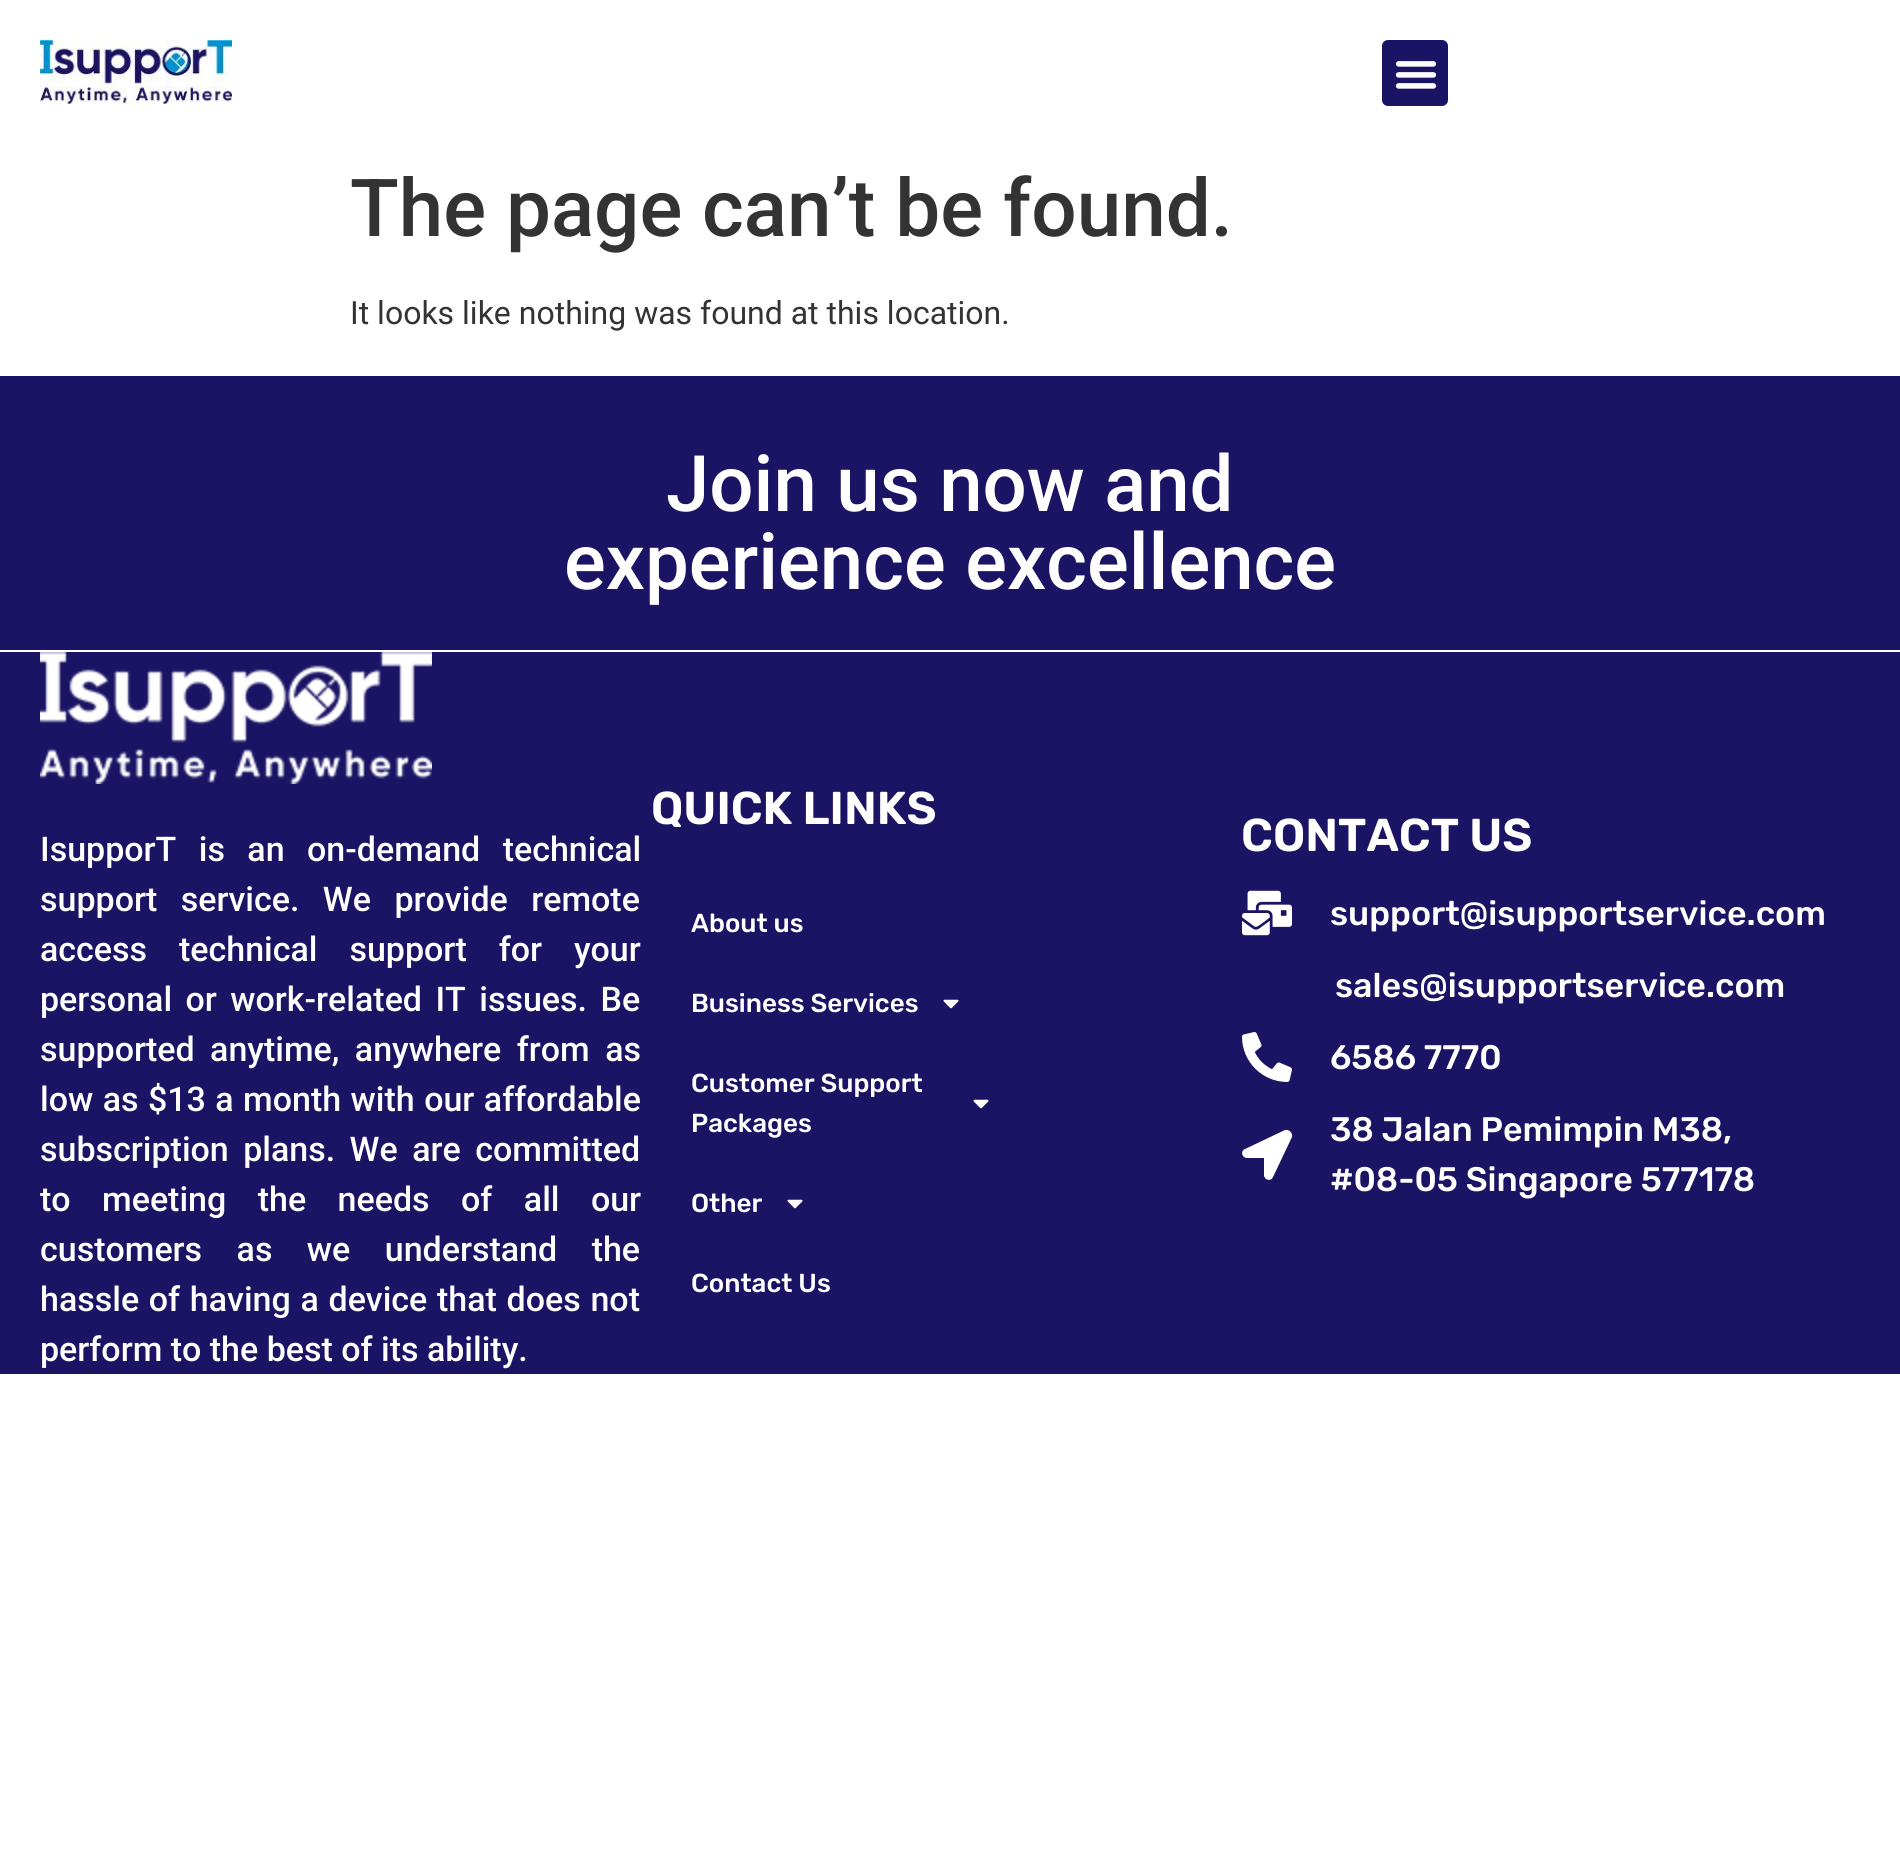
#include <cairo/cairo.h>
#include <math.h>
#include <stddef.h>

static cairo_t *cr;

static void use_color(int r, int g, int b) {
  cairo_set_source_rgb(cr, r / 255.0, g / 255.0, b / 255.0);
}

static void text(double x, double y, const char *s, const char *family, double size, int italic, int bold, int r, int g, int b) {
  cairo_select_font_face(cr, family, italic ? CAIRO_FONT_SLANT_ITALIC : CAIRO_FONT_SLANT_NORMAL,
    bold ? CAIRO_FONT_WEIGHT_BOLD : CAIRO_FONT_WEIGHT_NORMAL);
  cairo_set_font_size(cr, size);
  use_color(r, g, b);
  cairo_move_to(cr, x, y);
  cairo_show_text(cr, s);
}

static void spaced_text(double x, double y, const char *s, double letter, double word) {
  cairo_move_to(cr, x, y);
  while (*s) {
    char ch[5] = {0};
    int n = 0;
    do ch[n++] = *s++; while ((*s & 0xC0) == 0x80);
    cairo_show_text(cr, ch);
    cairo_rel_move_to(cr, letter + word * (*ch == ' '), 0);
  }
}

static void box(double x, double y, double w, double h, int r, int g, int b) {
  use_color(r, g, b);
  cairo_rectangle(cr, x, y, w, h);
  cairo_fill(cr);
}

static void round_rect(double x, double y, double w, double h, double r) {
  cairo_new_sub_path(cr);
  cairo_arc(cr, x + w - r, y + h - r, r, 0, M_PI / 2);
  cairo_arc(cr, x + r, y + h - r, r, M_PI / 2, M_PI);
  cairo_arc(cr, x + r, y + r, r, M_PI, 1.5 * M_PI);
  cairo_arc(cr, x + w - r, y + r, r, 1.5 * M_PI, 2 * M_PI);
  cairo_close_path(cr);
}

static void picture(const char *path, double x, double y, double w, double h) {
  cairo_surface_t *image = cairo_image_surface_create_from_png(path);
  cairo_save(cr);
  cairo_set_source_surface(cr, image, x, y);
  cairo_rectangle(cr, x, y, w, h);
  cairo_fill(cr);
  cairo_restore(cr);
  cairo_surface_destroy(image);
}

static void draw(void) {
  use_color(255, 255, 255);
  cairo_paint(cr);
  picture("img_01.png", 40, 40, 192, 64);
  use_color(27, 20, 100);
  round_rect(1382, 40, 66, 66, 6);
  cairo_fill(cr);
  picture("img_02.png", 1395, 61, 42, 28);
  box(0, 376, 1900, 274, 27, 20, 100);
  box(0, 652, 1900, 722, 27, 20, 100);
  picture("img_03.png", 40, 652, 392, 132);
  picture("img_04.png", 943, 999, 16, 10);
  picture("img_04.png", 973, 1099, 16, 10);
  picture("img_04.png", 787, 1199, 16, 10);
  picture("img_05.png", 1242, 890, 50, 46);
  picture("img_06.png", 1242, 1032, 50, 50);
  use_color(255, 255, 255);
  cairo_new_path(cr);
  cairo_move_to(cr, 1285, 1130);
  cairo_line_to(cr, 1245, 1149);
  cairo_curve_to(cr, 1240, 1151, 1242, 1158, 1247, 1158);
  cairo_line_to(cr, 1264, 1158);
  cairo_line_to(cr, 1264, 1175);
  cairo_curve_to(cr, 1264, 1180, 1271, 1182, 1273, 1177);
  cairo_line_to(cr, 1292, 1137);
  cairo_curve_to(cr, 1293, 1133, 1289, 1129, 1285, 1130);
  cairo_close_path(cr);
  cairo_fill(cr);
  text(350, 236, "The page can’t be found.", "Roboto Medium", 80, 0, 0, 51, 51, 51);
  text(350, 324, "It looks like nothing was found at this location.", "Roboto", 32, 0, 0, 51, 51, 51);
  text(666, 511, "Join us now and", "Roboto Medium", 78, 0, 0, 255, 255, 255);
  text(564, 589, "experience excellence", "Roboto Medium", 78, 0, 0, 255, 255, 255);
  cairo_set_font_size(cr, 34);
  spaced_text(40, 861, "IsupporT is an on-demand technical", 0, 14);
  spaced_text(40, 911, "support service. We provide remote", 0, 15);
  spaced_text(40, 961, "access technical support for your", 0, 23.5);
  spaced_text(40, 1011, "personal or work-related IT issues. Be", 0, 5);
  spaced_text(40, 1061, "supported anytime, anywhere from as", 0, 7);
  spaced_text(40, 1111, "low as $13 a month with our affordable", 0, 1);
  spaced_text(40, 1161, "subscription plans. We are committed", 0, 6);
  spaced_text(40, 1211, "to meeting the needs of all our", 0, 23);
  spaced_text(40, 1261, "customers as we understand the", 0, 26);
  spaced_text(40, 1311, "hassle of having a device that does not", 0, 1.25);
  text(40, 1361, "perform to the best of its ability.", "Roboto Medium", 34, 0, 0, 255, 255, 255);
  text(651, 824, "QUICK LINKS", "Rubik SemiBold", 46, 0, 0, 255, 255, 255);
  text(691, 932, "About us", "Rubik Medium", 26, 0, 0, 255, 255, 255);
  text(691, 1012, "Business Services", "Rubik Medium", 26, 0, 0, 255, 255, 255);
  text(691, 1092, "Customer Support", "Rubik Medium", 26, 0, 0, 255, 255, 255);
  text(691, 1132, "Packages", "Rubik Medium", 26, 0, 0, 255, 255, 255);
  text(691, 1212, "Other", "Rubik Medium", 26, 0, 0, 255, 255, 255);
  text(691, 1292, "Contact Us", "Rubik Medium", 26, 0, 0, 255, 255, 255);
  text(1241, 851, "CONTACT US", "Rubik SemiBold", 46, 0, 0, 255, 255, 255);
  text(1330, 925, "support@isupportservice.com", "Rubik Medium", 34, 0, 0, 255, 255, 255);
  text(1335, 997, "sales@isupportservice.com", "Rubik Medium", 34, 0, 0, 255, 255, 255);
  text(1330, 1069, "6586 7770", "Rubik Medium", 34, 0, 0, 255, 255, 255);
  text(1330, 1141, "38 Jalan Pemimpin M38,", "Rubik Medium", 34, 0, 0, 255, 255, 255);
  text(1330, 1191, "#08-05 Singapore 577178", "Rubik Medium", 34, 0, 0, 255, 255, 255);
}

int main(void) {
  cairo_surface_t *surface = cairo_image_surface_create(CAIRO_FORMAT_RGB24, 1900, 1862);
  cr = cairo_create(surface);
  cairo_font_options_t *options = cairo_font_options_create();
  cairo_font_options_set_hint_metrics(options, CAIRO_HINT_METRICS_OFF);
  cairo_font_options_set_hint_style(options, CAIRO_HINT_STYLE_NONE);
  cairo_set_font_options(cr, options);
  cairo_set_miter_limit(cr, 4);
  draw();
  cairo_surface_write_to_png(surface, "out.png");
  cairo_font_options_destroy(options);
  cairo_destroy(cr);
  cairo_surface_destroy(surface);
  return 0;
}
